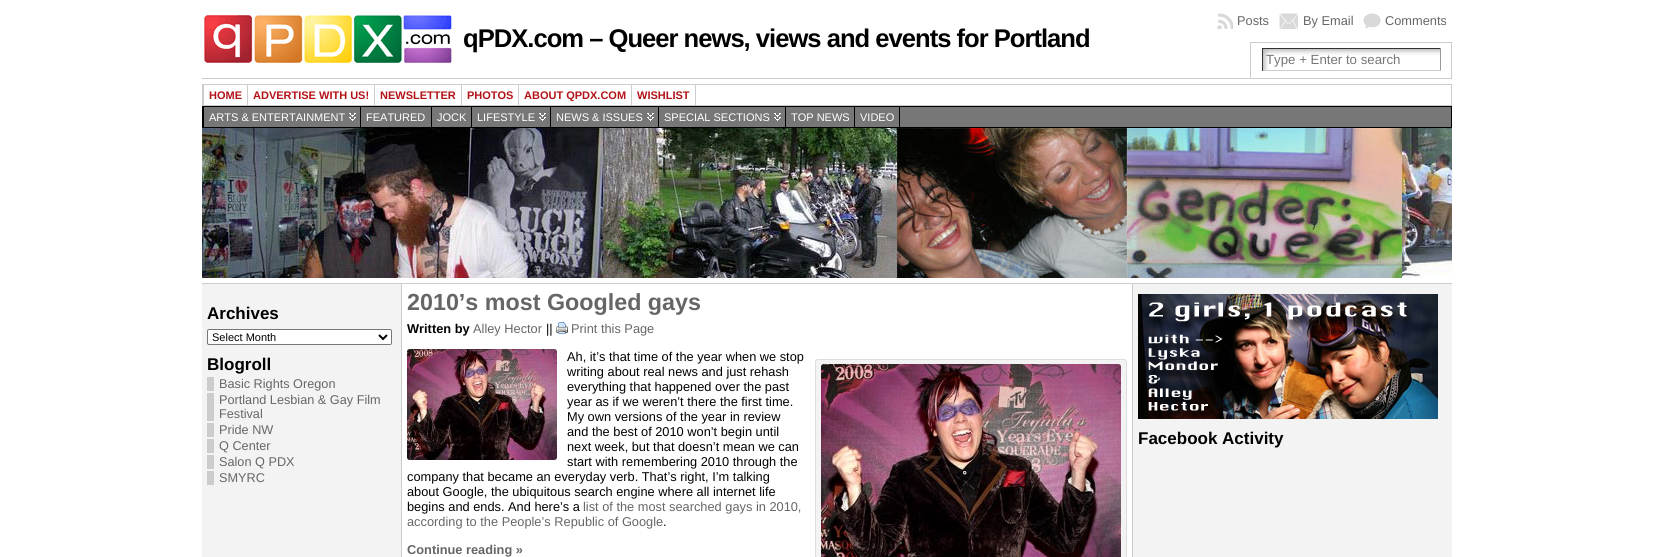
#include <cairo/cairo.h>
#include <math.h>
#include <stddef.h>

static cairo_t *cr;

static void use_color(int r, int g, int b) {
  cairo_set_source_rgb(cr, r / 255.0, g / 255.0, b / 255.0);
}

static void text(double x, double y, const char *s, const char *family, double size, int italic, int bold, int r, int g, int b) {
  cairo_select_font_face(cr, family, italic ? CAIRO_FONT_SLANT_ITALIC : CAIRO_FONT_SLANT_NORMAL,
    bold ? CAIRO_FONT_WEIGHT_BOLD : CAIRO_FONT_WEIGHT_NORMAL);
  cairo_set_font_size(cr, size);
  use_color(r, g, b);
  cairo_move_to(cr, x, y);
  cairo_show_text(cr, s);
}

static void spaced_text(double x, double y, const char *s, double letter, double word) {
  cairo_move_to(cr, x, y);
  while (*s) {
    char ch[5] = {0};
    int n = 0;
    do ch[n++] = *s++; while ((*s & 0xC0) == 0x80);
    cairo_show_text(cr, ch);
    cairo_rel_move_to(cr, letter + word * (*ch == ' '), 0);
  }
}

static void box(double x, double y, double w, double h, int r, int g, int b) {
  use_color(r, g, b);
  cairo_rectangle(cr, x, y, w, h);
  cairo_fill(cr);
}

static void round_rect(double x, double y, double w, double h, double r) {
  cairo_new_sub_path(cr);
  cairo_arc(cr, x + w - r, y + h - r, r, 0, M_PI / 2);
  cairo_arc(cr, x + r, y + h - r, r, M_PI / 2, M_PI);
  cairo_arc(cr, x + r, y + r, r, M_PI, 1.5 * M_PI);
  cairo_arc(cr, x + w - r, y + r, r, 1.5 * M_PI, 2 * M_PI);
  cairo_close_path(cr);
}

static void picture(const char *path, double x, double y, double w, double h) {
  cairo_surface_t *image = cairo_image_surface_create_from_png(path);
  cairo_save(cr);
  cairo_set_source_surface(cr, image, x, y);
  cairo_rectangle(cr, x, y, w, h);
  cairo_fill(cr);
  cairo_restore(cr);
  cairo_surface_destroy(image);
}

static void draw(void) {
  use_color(255, 255, 255);
  cairo_paint(cr);
  picture("img_01.png", 204, 15, 248, 48);
  picture("img_02.png", 1217, 13, 16, 16);
  picture("img_03.png", 1279, 13, 19, 16);
  picture("img_04.png", 1363, 13, 18, 16);
  box(1250, 42, 202, 1, 204, 204, 204);
  box(1451, 42, 1, 36, 204, 204, 204);
  box(1250, 42, 1, 36, 204, 204, 204);
  picture("img_05.png", 1263, 49, 177, 21);
  box(1262, 48, 179, 1, 51, 51, 51);
  box(1440, 48, 1, 23, 153, 153, 153);
  box(1262, 70, 179, 1, 204, 204, 204);
  box(1262, 48, 1, 23, 51, 51, 51);
  box(202, 78, 1250, 1, 204, 204, 204);
  cairo_rectangle(cr, 202.5, 84.5, 1249, 21);
  cairo_set_line_width(cr, 1);
  cairo_stroke(cr);
  cairo_rectangle(cr, 203.5, 84.5, 44, 21);
  cairo_stroke(cr);
  cairo_rectangle(cr, 247.5, 84.5, 127, 21);
  cairo_stroke(cr);
  cairo_rectangle(cr, 374.5, 84.5, 87, 21);
  cairo_stroke(cr);
  cairo_rectangle(cr, 461.5, 84.5, 57, 21);
  cairo_stroke(cr);
  cairo_rectangle(cr, 518.5, 84.5, 113, 21);
  cairo_stroke(cr);
  cairo_rectangle(cr, 631.5, 84.5, 64, 21);
  cairo_stroke(cr);
  box(900, 107, 551, 20, 119, 119, 119);
  cairo_rectangle(cr, 202.5, 106.5, 1249, 21);
  use_color(0, 0, 0);
  cairo_stroke(cr);
  box(204, 107, 156, 20, 119, 119, 119);
  picture("img_06.png", 349, 113, 7, 8);
  cairo_rectangle(cr, 203.5, 106.5, 157, 21);
  use_color(0, 0, 0);
  cairo_stroke(cr);
  use_color(119, 119, 119);
  cairo_rectangle(cr, 360.5, 106.5, 71, 21);
  cairo_fill_preserve(cr);
  use_color(0, 0, 0);
  cairo_stroke(cr);
  use_color(119, 119, 119);
  cairo_rectangle(cr, 431.5, 106.5, 40, 21);
  cairo_fill_preserve(cr);
  use_color(0, 0, 0);
  cairo_stroke(cr);
  box(472, 107, 78, 20, 119, 119, 119);
  picture("img_06.png", 539, 113, 7, 8);
  cairo_rectangle(cr, 471.5, 106.5, 79, 21);
  use_color(0, 0, 0);
  cairo_stroke(cr);
  box(551, 107, 107, 20, 119, 119, 119);
  picture("img_06.png", 647, 113, 7, 8);
  cairo_rectangle(cr, 550.5, 106.5, 108, 21);
  use_color(0, 0, 0);
  cairo_stroke(cr);
  box(659, 107, 126, 20, 119, 119, 119);
  picture("img_06.png", 774, 113, 7, 8);
  cairo_rectangle(cr, 658.5, 106.5, 127, 21);
  use_color(0, 0, 0);
  cairo_stroke(cr);
  use_color(119, 119, 119);
  cairo_rectangle(cr, 785.5, 106.5, 69, 21);
  cairo_fill_preserve(cr);
  use_color(0, 0, 0);
  cairo_stroke(cr);
  use_color(119, 119, 119);
  cairo_rectangle(cr, 854.5, 106.5, 45, 21);
  cairo_fill_preserve(cr);
  use_color(0, 0, 0);
  cairo_stroke(cr);
  picture("img_07.png", 1402, 128, 50, 150);
  picture("img_08.png", 202, 128, 1200, 150);
  box(202, 283, 1250, 1, 204, 204, 204);
  box(202, 284, 199, 273, 243, 243, 243);
  box(401, 284, 1, 273, 204, 204, 204);
  use_color(255, 255, 255);
  round_rect(207.5, 329.5, 184, 15, 1.5);
  cairo_fill_preserve(cr);
  use_color(118, 118, 118);
  cairo_stroke(cr);
  cairo_new_path(cr);
  cairo_move_to(cr, 379, 335);
  cairo_line_to(cr, 383, 339);
  cairo_line_to(cr, 387, 335);
  use_color(0, 0, 0);
  cairo_set_line_width(cr, 2);
  cairo_stroke(cr);
  box(207, 377, 7, 14, 204, 204, 204);
  box(207, 393, 7, 28, 204, 204, 204);
  box(207, 423, 7, 14, 204, 204, 204);
  box(207, 439, 7, 14, 204, 204, 204);
  box(207, 455, 7, 14, 204, 204, 204);
  box(207, 471, 7, 14, 204, 204, 204);
  picture("img_09.png", 556, 322, 12, 12);
  picture("img_10.png", 407, 349, 150, 111);
  use_color(243, 243, 243);
  round_rect(815.5, 359.5, 311, 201, 2.5);
  cairo_fill_preserve(cr);
  use_color(221, 221, 221);
  cairo_set_line_width(cr, 1);
  cairo_stroke(cr);
  picture("img_11.png", 821, 364, 300, 193);
  box(1133, 284, 319, 273, 243, 243, 243);
  box(1132, 284, 1, 273, 204, 204, 204);
  picture("img_12.png", 1138, 294, 300, 125);
  text(1237, 25, "Posts", "Liberation Sans", 12.8, 0, 0, 102, 102, 102);
  text(1303, 25, "By Email", "Liberation Sans", 12.8, 0, 0, 102, 102, 102);
  text(1385, 25, "Comments", "Liberation Sans", 12.8, 0, 0, 102, 102, 102);
  cairo_select_font_face(cr, "Liberation Sans", CAIRO_FONT_SLANT_NORMAL, CAIRO_FONT_WEIGHT_BOLD);
  cairo_set_font_size(cr, 25.6);
  use_color(0, 0, 0);
  spaced_text(463, 47, "qPDX.com – Queer news, views and events for Portland", -1, 0);
  text(1266, 64, "Type + Enter to search", "Liberation Sans", 13.25, 0, 0, 119, 119, 119);
  text(209, 99, "HOME", "Liberation Sans", 11, 0, 1, 179, 18, 23);
  text(253, 99, "ADVERTISE WITH US!", "Liberation Sans", 11, 0, 1, 179, 18, 23);
  text(380, 99, "NEWSLETTER", "Liberation Sans", 11, 0, 1, 179, 18, 23);
  text(467, 99, "PHOTOS", "Liberation Sans", 11, 0, 1, 179, 18, 23);
  text(524, 99, "ABOUT QPDX.COM", "Liberation Sans", 11, 0, 1, 179, 18, 23);
  text(637, 99, "WISHLIST", "Liberation Sans", 11, 0, 1, 179, 18, 23);
  text(209, 121, "ARTS & ENTERTAINMENT", "Liberation Sans", 11, 0, 0, 255, 255, 255);
  text(366, 121, "FEATURED", "Liberation Sans", 11, 0, 0, 255, 255, 255);
  text(437, 121, "JOCK", "Liberation Sans", 11, 0, 0, 255, 255, 255);
  text(477, 121, "LIFESTYLE", "Liberation Sans", 11, 0, 0, 255, 255, 255);
  text(556, 121, "NEWS & ISSUES", "Liberation Sans", 11, 0, 0, 255, 255, 255);
  text(664, 121, "SPECIAL SECTIONS", "Liberation Sans", 11, 0, 0, 255, 255, 255);
  text(791, 121, "TOP NEWS", "Liberation Sans", 11, 0, 0, 255, 255, 255);
  text(860, 121, "VIDEO", "Liberation Sans", 11, 0, 0, 255, 255, 255);
  text(207, 319, "Archives", "Liberation Sans", 17, 0, 1, 0, 0, 0);
  text(212, 341, "Select Month", "Liberation Sans", 11, 0, 0, 0, 0, 0);
  text(207, 370, "Blogroll", "Liberation Sans", 17, 0, 1, 0, 0, 0);
  text(219, 388, "Basic Rights Oregon", "Liberation Sans", 12.7, 0, 0, 102, 102, 102);
  text(219, 404, "Portland Lesbian & Gay Film", "Liberation Sans", 12.7, 0, 0, 102, 102, 102);
  text(219, 418, "Festival", "Liberation Sans", 12.7, 0, 0, 102, 102, 102);
  text(219, 434, "Pride NW", "Liberation Sans", 12.7, 0, 0, 102, 102, 102);
  text(219, 450, "Q Center", "Liberation Sans", 12.7, 0, 0, 102, 102, 102);
  text(219, 466, "Salon Q PDX", "Liberation Sans", 12.7, 0, 0, 102, 102, 102);
  text(219, 482, "SMYRC", "Liberation Sans", 12.7, 0, 0, 102, 102, 102);
  text(407, 310, "2010’s most Googled gays", "Liberation Sans", 23.3, 0, 1, 102, 102, 102);
  text(407, 333, "Written by", "Liberation Sans", 12.8, 0, 1, 0, 0, 0);
  text(473, 333, "Alley Hector", "Liberation Sans", 12.8, 0, 0, 102, 102, 102);
  text(546, 333, "||", "Liberation Sans", 12.8, 0, 0, 0, 0, 0);
  text(571, 333, "Print this Page", "Liberation Sans", 12.8, 0, 0, 102, 102, 102);
  text(567, 361, "Ah, it’s that time of the year when we stop", "Liberation Sans", 12.8, 0, 0, 0, 0, 0);
  text(567, 376, "writing about real news and just rehash", "Liberation Sans", 12.8, 0, 0, 0, 0, 0);
  text(567, 391, "everything that happened over the past", "Liberation Sans", 12.8, 0, 0, 0, 0, 0);
  text(567, 406, "year as if we weren’t there the first time.", "Liberation Sans", 12.8, 0, 0, 0, 0, 0);
  text(567, 421, "My own versions of the year in review", "Liberation Sans", 12.8, 0, 0, 0, 0, 0);
  text(567, 436, "and the best of 2010 won’t begin until", "Liberation Sans", 12.8, 0, 0, 0, 0, 0);
  text(567, 451, "next week, but that doesn’t mean we can", "Liberation Sans", 12.8, 0, 0, 0, 0, 0);
  text(567, 466, "start with remembering 2010 through the", "Liberation Sans", 12.8, 0, 0, 0, 0, 0);
  text(407, 481, "company that became an everyday verb. That’s right, I’m talking", "Liberation Sans", 12.8, 0, 0, 0, 0, 0);
  text(407, 496, "about Google, the ubiquitous search engine where all internet life", "Liberation Sans", 12.8, 0, 0, 0, 0, 0);
  text(407, 511, "begins and ends. And here’s a", "Liberation Sans", 12.8, 0, 0, 0, 0, 0);
  text(583, 511, "list of the most searched gays in 2010,", "Liberation Sans", 12.8, 0, 0, 102, 102, 102);
  text(407, 526, "according to the People’s Republic of Google", "Liberation Sans", 12.8, 0, 0, 102, 102, 102);
  text(663, 526, ".", "Liberation Sans", 12.8, 0, 0, 0, 0, 0);
  text(407, 554, "Continue reading »", "Liberation Sans", 12.8, 0, 1, 102, 102, 102);
  text(1138, 444, "Facebook Activity", "Liberation Sans", 17, 0, 1, 0, 0, 0);
}

int main(void) {
  cairo_surface_t *surface = cairo_image_surface_create(CAIRO_FORMAT_RGB24, 1654, 557);
  cr = cairo_create(surface);
  cairo_font_options_t *options = cairo_font_options_create();
  cairo_font_options_set_hint_metrics(options, CAIRO_HINT_METRICS_OFF);
  cairo_font_options_set_hint_style(options, CAIRO_HINT_STYLE_NONE);
  cairo_set_font_options(cr, options);
  cairo_set_miter_limit(cr, 4);
  draw();
  cairo_surface_write_to_png(surface, "out.png");
  cairo_font_options_destroy(options);
  cairo_destroy(cr);
  cairo_surface_destroy(surface);
  return 0;
}
